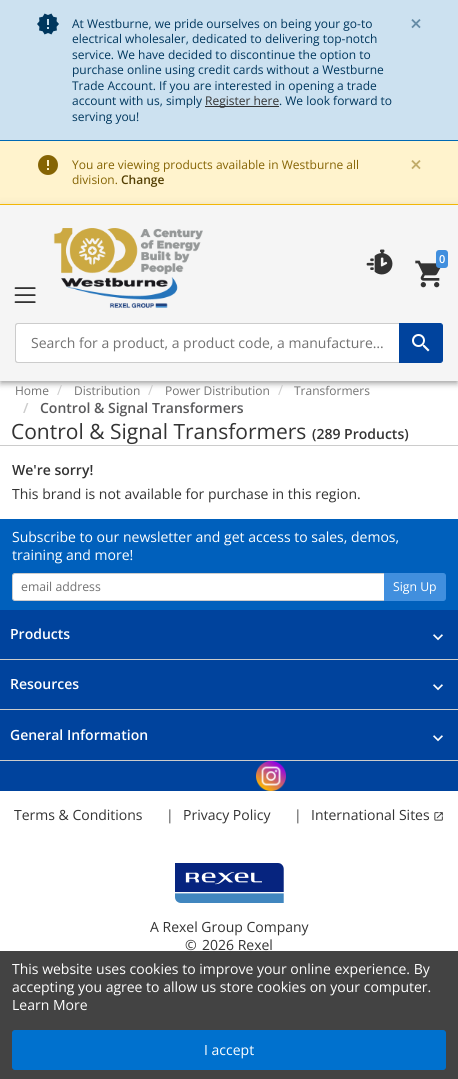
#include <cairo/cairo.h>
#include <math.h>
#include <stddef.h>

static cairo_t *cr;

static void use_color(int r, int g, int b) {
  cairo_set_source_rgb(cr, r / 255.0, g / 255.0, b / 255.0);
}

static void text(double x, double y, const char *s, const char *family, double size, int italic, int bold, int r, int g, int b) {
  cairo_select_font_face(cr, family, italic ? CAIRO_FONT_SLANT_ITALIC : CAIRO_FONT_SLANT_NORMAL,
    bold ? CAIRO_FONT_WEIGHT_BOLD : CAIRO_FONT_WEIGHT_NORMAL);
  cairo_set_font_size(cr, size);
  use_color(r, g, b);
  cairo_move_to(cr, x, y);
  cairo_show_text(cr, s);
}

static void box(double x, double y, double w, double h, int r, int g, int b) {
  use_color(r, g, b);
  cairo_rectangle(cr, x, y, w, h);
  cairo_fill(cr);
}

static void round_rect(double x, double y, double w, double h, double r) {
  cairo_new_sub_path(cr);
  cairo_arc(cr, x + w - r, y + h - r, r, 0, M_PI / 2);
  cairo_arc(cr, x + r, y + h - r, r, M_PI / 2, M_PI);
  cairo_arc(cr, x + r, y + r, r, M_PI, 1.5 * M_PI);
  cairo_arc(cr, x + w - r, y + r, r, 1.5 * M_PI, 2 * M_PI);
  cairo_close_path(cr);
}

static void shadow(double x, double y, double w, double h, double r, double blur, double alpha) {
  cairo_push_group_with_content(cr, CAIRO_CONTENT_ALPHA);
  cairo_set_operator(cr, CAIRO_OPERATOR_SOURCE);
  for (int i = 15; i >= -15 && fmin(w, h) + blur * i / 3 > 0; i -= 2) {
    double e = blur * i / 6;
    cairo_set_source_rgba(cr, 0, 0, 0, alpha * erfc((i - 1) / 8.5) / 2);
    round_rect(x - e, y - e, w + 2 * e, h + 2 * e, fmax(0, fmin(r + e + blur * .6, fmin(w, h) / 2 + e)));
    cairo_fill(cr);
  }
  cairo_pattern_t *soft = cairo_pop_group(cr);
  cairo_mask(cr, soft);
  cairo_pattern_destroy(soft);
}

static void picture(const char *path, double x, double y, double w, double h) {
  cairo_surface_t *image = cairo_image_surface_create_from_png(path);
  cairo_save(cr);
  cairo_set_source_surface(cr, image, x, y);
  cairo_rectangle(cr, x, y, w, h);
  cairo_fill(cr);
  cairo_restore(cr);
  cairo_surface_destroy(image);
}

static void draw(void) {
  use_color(255, 255, 255);
  cairo_paint(cr);
  box(0, 0, 458, 140, 204, 225, 240);
  box(0, 140, 458, 1, 0, 105, 180);
  picture("img_01.png", 37, 13, 22, 22);
  box(205, 106, 74, 1, 51, 51, 51);
  box(0, 141, 458, 63, 255, 243, 205);
  box(0, 204, 458, 1, 255, 193, 7);
  picture("img_02.png", 38, 155, 20, 20);
  use_color(0, 0, 0);
  shadow(1, 208, 456, 174, 0, 2, 0.2);
  shadow(0, 206, 458, 176, 0, 5, 0.12);
  shadow(0, 209, 458, 176, 0, 2.5, 0.14);
  box(0, 205, 458, 176, 245, 245, 245);
  picture("img_03.png", 14, 287, 22, 16);
  picture("img_04.png", 53, 228, 150, 80);
  picture("img_05.png", 366, 249, 27, 26);
  picture("img_06.png", 415, 260, 26, 28);
  use_color(65, 143, 222);
  round_rect(436, 250, 12, 18, 3);
  cairo_fill(cr);
  use_color(255, 255, 255);
  cairo_new_path(cr);
  cairo_move_to(cr, 18, 324);
  cairo_line_to(cr, 400, 324);
  cairo_line_to(cr, 400, 362);
  cairo_line_to(cr, 18, 362);
  cairo_curve_to(cr, 17, 362, 16, 361, 16, 360);
  cairo_line_to(cr, 16, 326);
  cairo_curve_to(cr, 16, 325, 17, 324, 18, 324);
  cairo_close_path(cr);
  cairo_fill(cr);
  use_color(204, 204, 204);
  cairo_set_fill_rule(cr, CAIRO_FILL_RULE_EVEN_ODD);
  cairo_new_path(cr);
  cairo_move_to(cr, 18, 323);
  cairo_line_to(cr, 400, 323);
  cairo_line_to(cr, 400, 363);
  cairo_line_to(cr, 18, 363);
  cairo_curve_to(cr, 16, 363, 15, 362, 15, 360);
  cairo_line_to(cr, 15, 326);
  cairo_curve_to(cr, 15, 324, 16, 323, 18, 323);
  cairo_close_path(cr);
  cairo_move_to(cr, 18, 324);
  cairo_line_to(cr, 400, 324);
  cairo_line_to(cr, 400, 362);
  cairo_line_to(cr, 18, 362);
  cairo_curve_to(cr, 17, 362, 16, 361, 16, 360);
  cairo_line_to(cr, 16, 326);
  cairo_curve_to(cr, 16, 325, 17, 324, 18, 324);
  cairo_close_path(cr);
  cairo_fill(cr);
  use_color(0, 67, 157);
  cairo_new_path(cr);
  cairo_move_to(cr, 399.5, 323.5);
  cairo_line_to(cr, 440, 323.5);
  cairo_curve_to(cr, 441.5, 323.5, 442.5, 324.5, 442.5, 326);
  cairo_line_to(cr, 442.5, 360);
  cairo_curve_to(cr, 442.5, 361.5, 441.5, 362.5, 440, 362.5);
  cairo_line_to(cr, 399.5, 362.5);
  cairo_close_path(cr);
  cairo_fill_preserve(cr);
  cairo_set_line_width(cr, 1);
  cairo_stroke(cr);
  picture("img_07.png", 412, 334, 18, 18);
  box(0, 445, 458, 1, 204, 204, 204);
  box(0, 610, 458, 181, 0, 67, 157);
  box(0, 519, 458, 91, 0, 96, 188);
  use_color(255, 255, 255);
  cairo_new_path(cr);
  cairo_move_to(cr, 15, 573.5);
  cairo_line_to(cr, 384.5, 573.5);
  cairo_line_to(cr, 384.5, 600.5);
  cairo_line_to(cr, 15, 600.5);
  cairo_curve_to(cr, 13.5, 600.5, 12.5, 599.5, 12.5, 598);
  cairo_line_to(cr, 12.5, 576);
  cairo_curve_to(cr, 12.5, 574.5, 13.5, 573.5, 15, 573.5);
  cairo_close_path(cr);
  cairo_fill_preserve(cr);
  use_color(204, 204, 204);
  cairo_stroke(cr);
  use_color(65, 143, 222);
  cairo_new_path(cr);
  cairo_move_to(cr, 384.5, 573.5);
  cairo_line_to(cr, 443, 573.5);
  cairo_curve_to(cr, 444.5, 573.5, 445.5, 574.5, 445.5, 576);
  cairo_line_to(cr, 445.5, 598);
  cairo_curve_to(cr, 445.5, 599.5, 444.5, 600.5, 443, 600.5);
  cairo_line_to(cr, 384.5, 600.5);
  cairo_close_path(cr);
  cairo_fill_preserve(cr);
  cairo_stroke(cr);
  box(0, 659, 458, 1, 204, 204, 204);
  picture("img_08.png", 433, 634, 10, 7);
  box(0, 709, 458, 1, 204, 204, 204);
  picture("img_08.png", 433, 684, 10, 7);
  box(0, 760, 458, 1, 204, 204, 204);
  picture("img_08.png", 433, 735, 10, 7);
  picture("img_09.png", 256, 761, 30, 30);
  picture("img_10.png", 434, 812, 9, 9);
  picture("img_11.png", 175, 863, 109, 40);
  box(0, 951, 458, 128, 67, 67, 67);
  use_color(0, 113, 206);
  round_rect(12.5, 1030.5, 433, 39, 2.5);
  cairo_fill_preserve(cr);
  cairo_stroke(cr);
  text(72, 28, "At Westburne, we pride ourselves on being your go-to", "Open Sans", 12, 0, 0, 0, 55, 94);
  text(72, 43, "electrical wholesaler, dedicated to delivering top-notch", "Open Sans", 12, 0, 0, 0, 55, 94);
  text(72, 59, "service. We have decided to discontinue the option to", "Open Sans", 12, 0, 0, 0, 55, 94);
  text(72, 74, "purchase online using credit cards without a Westburne", "Open Sans", 12, 0, 0, 0, 55, 94);
  text(72, 90, "Trade Account. If you are interested in opening a trade", "Open Sans", 12, 0, 0, 0, 55, 94);
  text(72, 105, "account with us, simply", "Open Sans", 12, 0, 0, 0, 55, 94);
  text(205, 105, "Register here", "Open Sans", 12, 0, 0, 51, 51, 51);
  text(279, 105, ". We look forward to", "Open Sans", 12, 0, 0, 0, 55, 94);
  text(72, 121, "serving you!", "Open Sans", 12, 0, 0, 0, 55, 94);
  text(410, 31, "×", "Open Sans SemiBold", 21, 0, 0, 102, 140, 167);
  text(72, 169, "You are viewing products available in Westburne all", "Open Sans", 12, 0, 0, 133, 100, 4);
  text(410, 172, "×", "Open Sans SemiBold", 21, 0, 0, 194, 172, 105);
  text(72, 184, "division.", "Open Sans", 12, 0, 0, 133, 100, 4);
  text(121, 184, "Change", "Open Sans SemiBold", 12, 0, 0, 83, 63, 3);
  text(439, 263, "0", "Open Sans SemiBold", 11, 0, 0, 255, 255, 255);
  text(31, 348, "Search for a product, a product code, a manufacture…", "Open Sans", 14, 0, 0, 114, 114, 114);
  text(15, 395, "Home", "Open Sans", 12, 0, 0, 114, 114, 114);
  text(57, 395, "/", "Open Sans", 14, 0, 0, 204, 204, 204);
  text(74, 395, "Distribution", "Open Sans", 12, 0, 0, 114, 114, 114);
  text(148, 395, "/", "Open Sans", 14, 0, 0, 204, 204, 204);
  text(165, 395, "Power Distribution", "Open Sans", 12, 0, 0, 114, 114, 114);
  text(278, 395, "/", "Open Sans", 14, 0, 0, 204, 204, 204);
  text(294, 395, "Transformers", "Open Sans", 12, 0, 0, 114, 114, 114);
  text(23, 413, "/", "Open Sans SemiBold", 14, 0, 0, 204, 204, 204);
  text(40, 413, "Control & Signal Transformers", "Open Sans SemiBold", 14, 0, 0, 88, 88, 90);
  text(11, 439, "Control & Signal Transformers", "Open Sans", 21, 0, 0, 51, 51, 51);
  text(312, 439, "(289 Products)", "Open Sans SemiBold", 14, 0, 0, 51, 51, 51);
  text(12, 475, "We're sorry!", "Open Sans SemiBold", 14, 0, 0, 51, 51, 51);
  text(12, 499, "This brand is not available for purchase in this region.", "Open Sans", 14, 0, 0, 51, 51, 51);
  text(12, 542, "Subscribe to our newsletter and get access to sales, demos,", "Open Sans", 14, 0, 0, 255, 255, 255);
  text(12, 560, "training and more!", "Open Sans", 14, 0, 0, 255, 255, 255);
  text(21, 591, "email address", "Open Sans", 12.25, 0, 0, 114, 114, 114);
  text(393, 591, "Sign Up", "Open Sans", 12.25, 0, 0, 255, 255, 255);
  text(10, 639, "Products", "Open Sans SemiBold", 14, 0, 0, 255, 255, 255);
  text(10, 689, "Resources", "Open Sans SemiBold", 14, 0, 0, 255, 255, 255);
  text(10, 740, "General Information", "Open Sans SemiBold", 14, 0, 0, 255, 255, 255);
  text(14, 820, "Terms & Conditions", "Open Sans", 14, 0, 0, 51, 51, 51);
  text(166, 820, "|", "Open Sans", 14, 0, 0, 69, 69, 69);
  text(183, 820, "Privacy Policy", "Open Sans", 14, 0, 0, 51, 51, 51);
  text(294, 820, "|", "Open Sans", 14, 0, 0, 69, 69, 69);
  text(311, 820, "International Sites", "Open Sans", 14, 0, 0, 51, 51, 51);
  text(150, 932, "A Rexel Group Company", "Open Sans", 14, 0, 0, 51, 51, 51);
  text(185, 950, "©", "Open Sans", 14, 0, 0, 51, 51, 51);
  text(202, 950, "2026 Rexel", "Open Sans", 14, 0, 0, 51, 51, 51);
  text(12, 974, "This website uses cookies to improve your online experience. By", "Open Sans", 14, 0, 0, 255, 255, 255);
  text(12, 992, "accepting you agree to allow us store cookies on your computer.", "Open Sans", 14, 0, 0, 255, 255, 255);
  text(12, 1010, "Learn More", "Open Sans", 14, 0, 0, 255, 255, 255);
  text(204, 1055, "I accept", "Open Sans", 14, 0, 0, 255, 255, 255);
}

int main(void) {
  cairo_surface_t *surface = cairo_image_surface_create(CAIRO_FORMAT_RGB24, 458, 1079);
  cr = cairo_create(surface);
  cairo_font_options_t *options = cairo_font_options_create();
  cairo_font_options_set_hint_metrics(options, CAIRO_HINT_METRICS_OFF);
  cairo_font_options_set_hint_style(options, CAIRO_HINT_STYLE_NONE);
  cairo_set_font_options(cr, options);
  cairo_set_miter_limit(cr, 4);
  draw();
  cairo_surface_write_to_png(surface, "out.png");
  cairo_font_options_destroy(options);
  cairo_destroy(cr);
  cairo_surface_destroy(surface);
  return 0;
}
